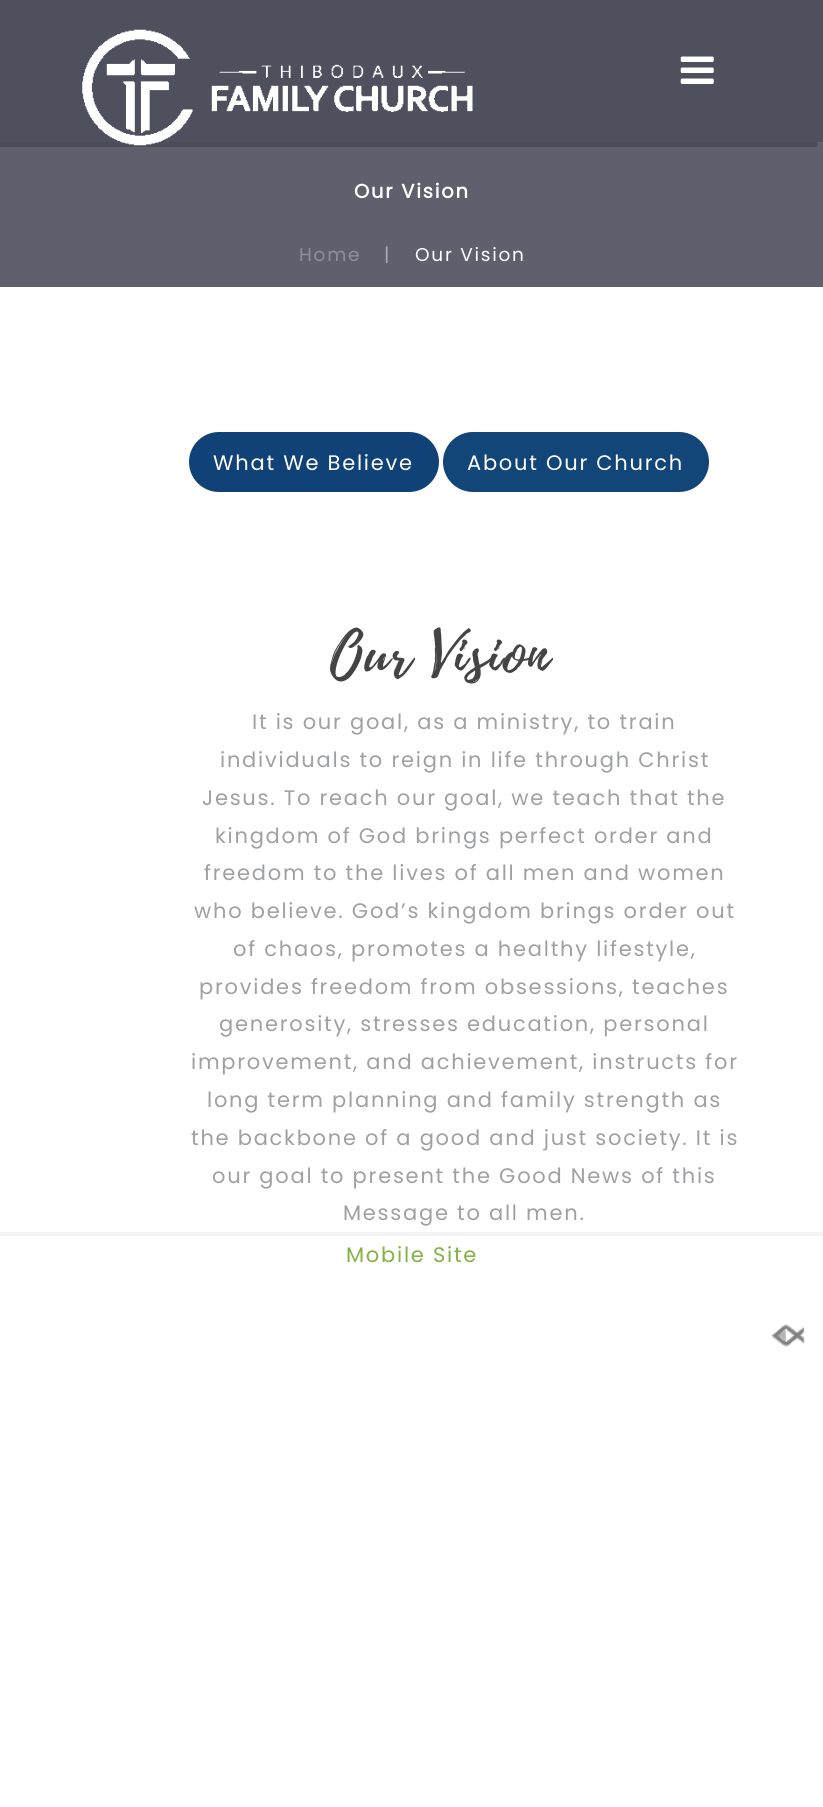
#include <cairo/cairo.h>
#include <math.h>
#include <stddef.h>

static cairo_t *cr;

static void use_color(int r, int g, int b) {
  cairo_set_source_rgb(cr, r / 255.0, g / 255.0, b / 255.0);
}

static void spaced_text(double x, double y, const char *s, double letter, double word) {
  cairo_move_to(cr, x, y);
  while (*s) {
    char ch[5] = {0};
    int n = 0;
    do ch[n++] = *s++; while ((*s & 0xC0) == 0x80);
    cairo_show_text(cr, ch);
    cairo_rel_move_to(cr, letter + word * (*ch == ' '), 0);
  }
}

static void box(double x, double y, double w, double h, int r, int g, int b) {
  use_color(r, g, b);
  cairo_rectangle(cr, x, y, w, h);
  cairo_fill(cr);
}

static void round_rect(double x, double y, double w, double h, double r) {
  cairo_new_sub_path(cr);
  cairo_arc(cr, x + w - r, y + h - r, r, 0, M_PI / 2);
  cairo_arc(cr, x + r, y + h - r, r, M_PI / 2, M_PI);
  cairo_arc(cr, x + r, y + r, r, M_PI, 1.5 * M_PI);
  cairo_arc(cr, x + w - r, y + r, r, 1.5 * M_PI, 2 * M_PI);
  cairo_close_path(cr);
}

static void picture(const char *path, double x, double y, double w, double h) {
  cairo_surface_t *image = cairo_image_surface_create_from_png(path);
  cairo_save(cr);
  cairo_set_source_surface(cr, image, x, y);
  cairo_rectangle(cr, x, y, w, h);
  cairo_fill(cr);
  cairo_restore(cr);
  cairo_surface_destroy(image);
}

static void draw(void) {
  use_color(255, 255, 255);
  cairo_paint(cr);
  box(0, 142, 823, 145, 94, 96, 109);
  use_color(75, 77, 87);
  cairo_new_path(cr);
  cairo_move_to(cr, -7, 5);
  cairo_line_to(cr, -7, 147);
  cairo_line_to(cr, 817, 147);
  cairo_line_to(cr, 817, 142);
  cairo_line_to(cr, 0, 142);
  cairo_line_to(cr, 0, 5);
  cairo_close_path(cr);
  cairo_fill(cr);
  box(0, 0, 823, 142, 78, 80, 93);
  picture("img_01.png", 82, 29, 391, 117);
  picture("img_02.png", 680, 56, 34, 28);
  use_color(16, 66, 120);
  round_rect(189, 432, 250, 60, 30);
  cairo_fill(cr);
  use_color(18, 69, 120);
  round_rect(443, 432, 266, 60, 30);
  cairo_fill(cr);
  box(0, 1232, 823, 4, 244, 244, 244);
  picture("img_03.png", 771, 1324, 34, 23);
  cairo_select_font_face(cr, "Poppins", CAIRO_FONT_SLANT_NORMAL, CAIRO_FONT_WEIGHT_BOLD);
  cairo_set_font_size(cr, 19.5);
  use_color(255, 255, 255);
  spaced_text(354, 198, "Our Vision", 1.75, 0);
  cairo_select_font_face(cr, "Poppins", CAIRO_FONT_SLANT_NORMAL, CAIRO_FONT_WEIGHT_NORMAL);
  cairo_set_font_size(cr, 18.5);
  use_color(142, 144, 153);
  spaced_text(299, 261, "Home", 1.75, 0);
  use_color(160, 172, 184);
  spaced_text(384, 261, "|", 1.75, 0);
  use_color(255, 255, 255);
  spaced_text(415, 261, "Our Vision", 1.75, 0);
  cairo_set_font_size(cr, 21);
  spaced_text(213, 470, "What We Believe", 1.75, 0);
  spaced_text(467, 470, "About Our Church", 1.75, 0);
  cairo_select_font_face(cr, "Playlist", CAIRO_FONT_SLANT_NORMAL, CAIRO_FONT_WEIGHT_NORMAL);
  cairo_set_font_size(cr, 60.5);
  use_color(68, 68, 68);
  spaced_text(330, 673, "Our Vision", 1.75, 0);
  cairo_select_font_face(cr, "Poppins", CAIRO_FONT_SLANT_NORMAL, CAIRO_FONT_WEIGHT_NORMAL);
  cairo_set_font_size(cr, 21);
  use_color(159, 160, 163);
  spaced_text(252, 729, "It is our goal, as a ministry, to train", 1.75, 0);
  spaced_text(220, 767, "individuals to reign in life through Christ", 1.75, 0);
  spaced_text(202, 805, "Jesus. To reach our goal, we teach that the", 1.75, 0);
  spaced_text(215, 843, "kingdom of God brings perfect order and", 1.75, 0);
  spaced_text(204, 880, "freedom to the lives of all men and women", 1.75, 0);
  spaced_text(194, 918, "who believe. God’s kingdom brings order out", 1.75, 0);
  spaced_text(233, 956, "of chaos, promotes a healthy lifestyle,", 1.75, 0);
  spaced_text(199, 994, "provides freedom from obsessions, teaches", 1.75, 0);
  spaced_text(219, 1031, "generosity, stresses education, personal", 1.75, 0);
  spaced_text(191, 1069, "improvement, and achievement, instructs for", 1.75, 0);
  spaced_text(207, 1107, "long term planning and family strength as", 1.75, 0);
  spaced_text(191, 1145, "the backbone of a good and just society. It is", 1.75, 0);
  spaced_text(212, 1183, "our goal to present the Good News of this", 1.75, 0);
  spaced_text(343, 1220, "Message to all men.", 1.75, 0);
  use_color(130, 178, 68);
  spaced_text(346, 1262, "Mobile Site", 1.75, 0);
}

int main(void) {
  cairo_surface_t *surface = cairo_image_surface_create(CAIRO_FORMAT_RGB24, 823, 1807);
  cr = cairo_create(surface);
  cairo_font_options_t *options = cairo_font_options_create();
  cairo_font_options_set_hint_metrics(options, CAIRO_HINT_METRICS_OFF);
  cairo_font_options_set_hint_style(options, CAIRO_HINT_STYLE_NONE);
  cairo_set_font_options(cr, options);
  cairo_set_miter_limit(cr, 4);
  draw();
  cairo_surface_write_to_png(surface, "out.png");
  cairo_font_options_destroy(options);
  cairo_destroy(cr);
  cairo_surface_destroy(surface);
  return 0;
}
